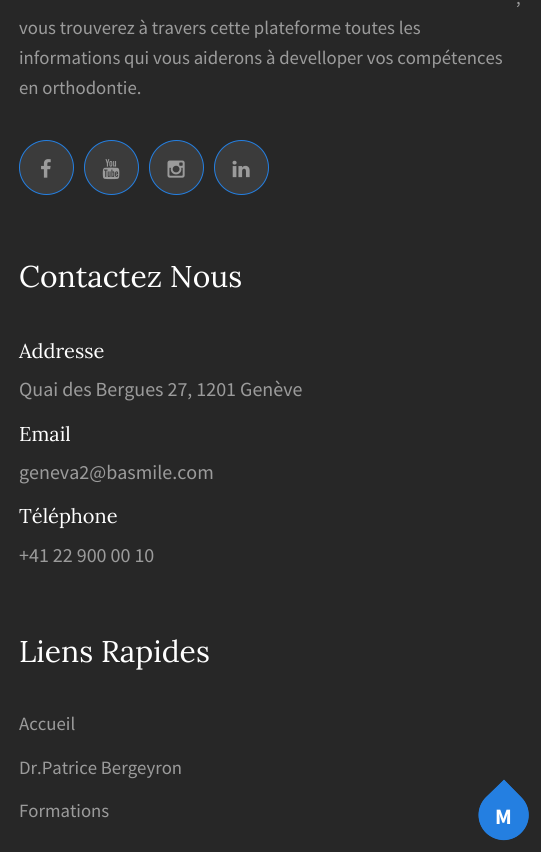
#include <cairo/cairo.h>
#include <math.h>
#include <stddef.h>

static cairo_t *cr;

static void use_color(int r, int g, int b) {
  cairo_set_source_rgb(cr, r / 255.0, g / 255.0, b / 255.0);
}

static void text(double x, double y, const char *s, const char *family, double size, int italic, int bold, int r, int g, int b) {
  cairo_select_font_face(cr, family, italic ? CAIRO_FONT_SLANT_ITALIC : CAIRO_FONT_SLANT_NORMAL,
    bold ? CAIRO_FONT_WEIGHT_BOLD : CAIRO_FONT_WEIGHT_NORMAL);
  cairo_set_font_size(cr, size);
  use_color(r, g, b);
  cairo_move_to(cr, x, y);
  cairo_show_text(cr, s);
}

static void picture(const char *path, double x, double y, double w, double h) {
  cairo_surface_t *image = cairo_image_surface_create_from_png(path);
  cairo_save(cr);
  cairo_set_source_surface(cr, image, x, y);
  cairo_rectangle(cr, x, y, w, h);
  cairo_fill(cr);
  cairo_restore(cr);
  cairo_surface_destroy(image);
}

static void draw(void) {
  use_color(39, 39, 39);
  cairo_paint(cr);
  use_color(59, 59, 59);
  cairo_arc(cr, 46.5, 167.5, 27, 0, 2 * M_PI);
  cairo_fill_preserve(cr);
  use_color(36, 127, 225);
  cairo_set_line_width(cr, 1);
  cairo_stroke(cr);
  picture("img_01.png", 41, 159, 10, 19);
  use_color(59, 59, 59);
  cairo_arc(cr, 111.5, 167.5, 27, 0, 2 * M_PI);
  cairo_fill_preserve(cr);
  use_color(36, 127, 225);
  cairo_stroke(cr);
  picture("img_02.png", 102, 159, 18, 21);
  use_color(59, 59, 59);
  cairo_arc(cr, 176.5, 167.5, 27, 0, 2 * M_PI);
  cairo_fill_preserve(cr);
  use_color(36, 127, 225);
  cairo_stroke(cr);
  picture("img_03.png", 167, 160, 18, 18);
  use_color(59, 59, 59);
  cairo_arc(cr, 241.5, 167.5, 27, 0, 2 * M_PI);
  cairo_fill_preserve(cr);
  use_color(36, 127, 225);
  cairo_stroke(cr);
  picture("img_04.png", 232, 160, 18, 18);
  cairo_new_path(cr);
  cairo_move_to(cr, 486, 797);
  cairo_line_to(cr, 504, 780);
  cairo_line_to(cr, 521, 797);
  cairo_curve_to(cr, 531, 807, 531, 823, 521, 833);
  cairo_curve_to(cr, 512, 842, 496, 842, 486, 833);
  cairo_curve_to(cr, 476, 823, 476, 807, 486, 797);
  cairo_close_path(cr);
  cairo_fill(cr);
  cairo_new_path(cr);
  cairo_move_to(cr, 486.5, 798);
  cairo_line_to(cr, 504, 780.5);
  cairo_line_to(cr, 521, 798);
  cairo_curve_to(cr, 530.5, 807.5, 530.5, 822.5, 521, 832);
  cairo_curve_to(cr, 511.5, 842, 496, 842, 486.5, 832);
  cairo_curve_to(cr, 477, 822.5, 477, 807.5, 486.5, 798);
  cairo_close_path(cr);
  cairo_set_line_width(cr, 1.3);
  cairo_stroke(cr);
  text(516, 4, ",", "Source Sans Pro", 18.75, 0, 0, 155, 155, 155);
  text(19, 34, "vous trouverez à travers cette plateforme toutes les", "Source Sans Pro", 18.75, 0, 0, 155, 155, 155);
  text(19, 64, "informations qui vous aiderons à develloper vos compétences", "Source Sans Pro", 18.75, 0, 0, 155, 155, 155);
  text(19, 94, "en orthodontie.", "Source Sans Pro", 18.75, 0, 0, 155, 155, 155);
  text(19, 287, "Contactez Nous", "Lora", 30, 0, 0, 255, 255, 255);
  text(19, 358, "Addresse", "Lora", 20, 0, 0, 255, 255, 255);
  text(19, 396, "Quai des Bergues 27, 1201 Genève", "Source Sans Pro", 20, 0, 0, 155, 155, 155);
  text(19, 441, "Email", "Lora", 20, 0, 0, 255, 255, 255);
  text(19, 479, "geneva2@basmile.com", "Source Sans Pro", 20, 0, 0, 155, 155, 155);
  text(19, 523, "Téléphone", "Lora", 20, 0, 0, 255, 255, 255);
  text(19, 562, "+41 22 900 00 10", "Source Sans Pro", 20, 0, 0, 155, 155, 155);
  text(19, 662, "Liens Rapides", "Lora", 30, 0, 0, 255, 255, 255);
  text(19, 730, "Accueil", "Source Sans Pro", 18.75, 0, 0, 155, 155, 155);
  text(19, 774, "Dr.Patrice Bergeyron", "Source Sans Pro", 18.75, 0, 0, 155, 155, 155);
  text(19, 817, "Formations", "Source Sans Pro", 18.75, 0, 0, 155, 155, 155);
  text(495, 824, "M", "Source Sans Pro", 22, 0, 1, 255, 255, 255);
}

int main(void) {
  cairo_surface_t *surface = cairo_image_surface_create(CAIRO_FORMAT_RGB24, 541, 852);
  cr = cairo_create(surface);
  cairo_font_options_t *options = cairo_font_options_create();
  cairo_font_options_set_hint_metrics(options, CAIRO_HINT_METRICS_OFF);
  cairo_font_options_set_hint_style(options, CAIRO_HINT_STYLE_NONE);
  cairo_set_font_options(cr, options);
  cairo_set_miter_limit(cr, 4);
  draw();
  cairo_surface_write_to_png(surface, "out.png");
  cairo_font_options_destroy(options);
  cairo_destroy(cr);
  cairo_surface_destroy(surface);
  return 0;
}
